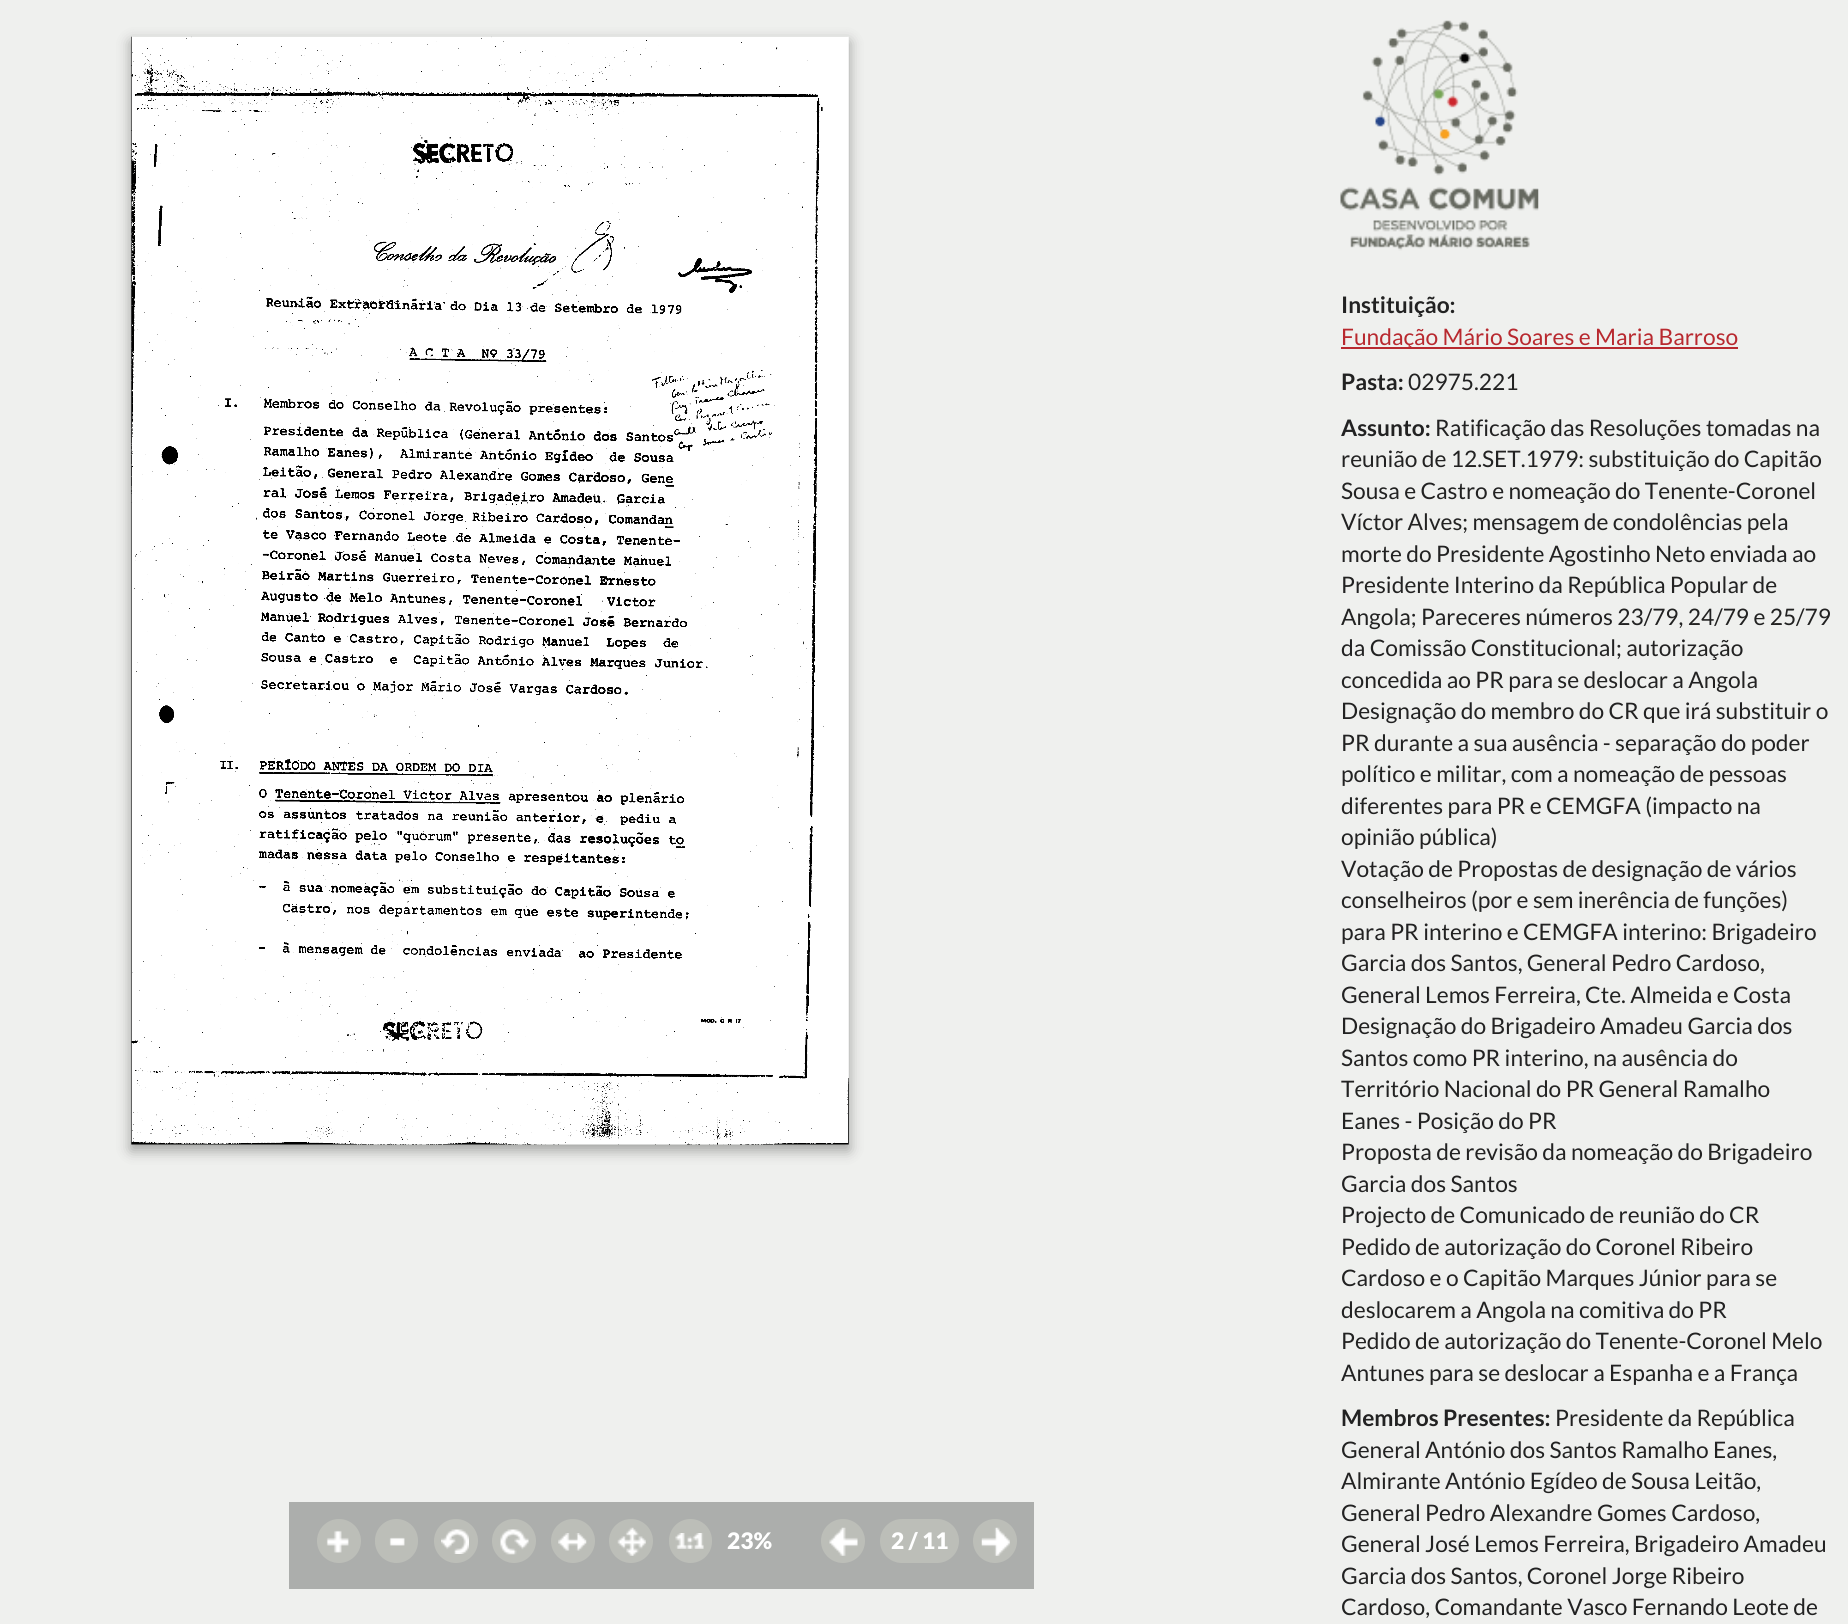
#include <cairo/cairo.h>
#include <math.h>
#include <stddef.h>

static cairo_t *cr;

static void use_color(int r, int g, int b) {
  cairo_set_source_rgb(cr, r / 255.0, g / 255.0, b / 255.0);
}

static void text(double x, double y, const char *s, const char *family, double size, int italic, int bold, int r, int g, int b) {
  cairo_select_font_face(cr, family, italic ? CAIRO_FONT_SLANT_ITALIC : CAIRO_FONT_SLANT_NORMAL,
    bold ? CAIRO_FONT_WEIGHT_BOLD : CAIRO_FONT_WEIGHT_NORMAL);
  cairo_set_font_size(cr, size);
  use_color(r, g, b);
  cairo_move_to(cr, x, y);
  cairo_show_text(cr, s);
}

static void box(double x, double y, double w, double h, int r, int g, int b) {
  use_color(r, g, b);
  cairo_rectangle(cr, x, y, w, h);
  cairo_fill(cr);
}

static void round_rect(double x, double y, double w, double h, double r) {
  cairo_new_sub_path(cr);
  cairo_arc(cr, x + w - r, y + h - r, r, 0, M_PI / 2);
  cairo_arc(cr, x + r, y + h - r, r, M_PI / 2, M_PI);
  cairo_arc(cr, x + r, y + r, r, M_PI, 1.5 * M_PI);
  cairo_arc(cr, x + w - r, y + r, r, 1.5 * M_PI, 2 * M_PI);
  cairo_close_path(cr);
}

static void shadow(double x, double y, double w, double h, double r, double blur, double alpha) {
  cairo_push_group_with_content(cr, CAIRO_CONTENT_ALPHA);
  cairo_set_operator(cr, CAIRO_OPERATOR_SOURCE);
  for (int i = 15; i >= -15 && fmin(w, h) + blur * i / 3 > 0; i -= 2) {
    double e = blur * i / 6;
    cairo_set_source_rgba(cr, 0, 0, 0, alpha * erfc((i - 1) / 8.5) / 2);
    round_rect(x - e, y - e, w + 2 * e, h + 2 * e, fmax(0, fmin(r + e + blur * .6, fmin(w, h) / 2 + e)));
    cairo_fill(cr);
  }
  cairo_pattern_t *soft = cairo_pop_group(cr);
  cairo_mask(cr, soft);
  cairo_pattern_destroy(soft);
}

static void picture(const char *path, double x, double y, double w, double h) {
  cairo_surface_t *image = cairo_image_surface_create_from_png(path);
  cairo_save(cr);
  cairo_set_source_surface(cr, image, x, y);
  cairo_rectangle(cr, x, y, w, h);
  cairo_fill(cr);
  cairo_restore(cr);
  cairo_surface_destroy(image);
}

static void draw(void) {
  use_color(239, 240, 238);
  cairo_paint(cr);
  use_color(0, 0, 0);
  shadow(131, 42, 718, 1108, 0, 7, 0.35);
  picture("img_01.png", 131, 36, 718, 1109);
  picture("img_02.png", 1340, 20, 199, 231);
  box(1341, 347, 397, 2, 184, 41, 47);
  box(289, 1502, 745, 87, 172, 174, 172);
  use_color(188, 190, 184);
  cairo_arc(cr, 339, 1541, 22, 0, 2 * M_PI);
  cairo_fill(cr);
  picture("img_03.png", 326, 1530, 23, 23);
  round_rect(375, 1519, 43, 44, 21.5);
  cairo_fill(cr);
  picture("img_04.png", 389, 1537, 16, 9);
  cairo_arc(cr, 456, 1541, 22, 0, 2 * M_PI);
  cairo_fill(cr);
  picture("img_05.png", 441, 1529, 28, 25);
  cairo_arc(cr, 514, 1541, 22, 0, 2 * M_PI);
  cairo_fill(cr);
  picture("img_06.png", 500, 1529, 29, 26);
  cairo_arc(cr, 573, 1541, 22, 0, 2 * M_PI);
  cairo_fill(cr);
  picture("img_07.png", 558, 1533, 29, 18);
  cairo_arc(cr, 631, 1541, 22, 0, 2 * M_PI);
  cairo_fill(cr);
  picture("img_08.png", 617, 1527, 29, 29);
  round_rect(669, 1519, 43, 44, 21.5);
  cairo_fill(cr);
  picture("img_09.png", 675, 1533, 29, 16);
  cairo_arc(cr, 843, 1541, 22, 0, 2 * M_PI);
  cairo_fill(cr);
  picture("img_10.png", 829, 1527, 29, 29);
  round_rect(880, 1519, 79, 44, 22);
  cairo_fill(cr);
  cairo_arc(cr, 995, 1541, 22, 0, 2 * M_PI);
  cairo_fill(cr);
  picture("img_11.png", 981, 1527, 29, 29);
  text(1341, 313, "Instituição:", "Lato", 22.75, 0, 1, 34, 34, 34);
  text(1341, 345, "Fundação Mário Soares e Maria Barroso", "Lato", 22.75, 0, 0, 184, 41, 47);
  text(1341, 390, "Pasta:", "Lato", 22.75, 0, 1, 34, 34, 34);
  text(1408, 390, "02975.221", "Lato", 22.75, 0, 0, 34, 34, 34);
  text(1341, 436, "Assunto:", "Lato", 22.75, 0, 1, 34, 34, 34);
  text(1435, 436, "Ratificação das Resoluções tomadas na", "Lato", 22.75, 0, 0, 34, 34, 34);
  text(1341, 467, "reunião de 12.SET.1979: substituição do Capitão", "Lato", 22.75, 0, 0, 34, 34, 34);
  text(1341, 499, "Sousa e Castro e nomeação do Tenente-Coronel", "Lato", 22.75, 0, 0, 34, 34, 34);
  text(1341, 530, "Víctor Alves; mensagem de condolências pela", "Lato", 22.75, 0, 0, 34, 34, 34);
  text(1341, 562, "morte do Presidente Agostinho Neto enviada ao", "Lato", 22.75, 0, 0, 34, 34, 34);
  text(1341, 593, "Presidente Interino da República Popular de", "Lato", 22.75, 0, 0, 34, 34, 34);
  text(1341, 625, "Angola; Pareceres números 23/79, 24/79 e 25/79", "Lato", 22.75, 0, 0, 34, 34, 34);
  text(1341, 656, "da Comissão Constitucional; autorização", "Lato", 22.75, 0, 0, 34, 34, 34);
  text(1341, 688, "concedida ao PR para se deslocar a Angola", "Lato", 22.75, 0, 0, 34, 34, 34);
  text(1341, 719, "Designação do membro do CR que irá substituir o", "Lato", 22.75, 0, 0, 34, 34, 34);
  text(1341, 751, "PR durante a sua ausência - separação do poder", "Lato", 22.75, 0, 0, 34, 34, 34);
  text(1341, 782, "político e militar, com a nomeação de pessoas", "Lato", 22.75, 0, 0, 34, 34, 34);
  text(1341, 814, "diferentes para PR e CEMGFA (impacto na", "Lato", 22.75, 0, 0, 34, 34, 34);
  text(1341, 845, "opinião pública)", "Lato", 22.75, 0, 0, 34, 34, 34);
  text(1341, 877, "Votação de Propostas de designação de vários", "Lato", 22.75, 0, 0, 34, 34, 34);
  text(1341, 908, "conselheiros (por e sem inerência de funções)", "Lato", 22.75, 0, 0, 34, 34, 34);
  text(1341, 940, "para PR interino e CEMGFA interino: Brigadeiro", "Lato", 22.75, 0, 0, 34, 34, 34);
  text(1341, 971, "Garcia dos Santos, General Pedro Cardoso,", "Lato", 22.75, 0, 0, 34, 34, 34);
  text(1341, 1003, "General Lemos Ferreira, Cte. Almeida e Costa", "Lato", 22.75, 0, 0, 34, 34, 34);
  text(1341, 1034, "Designação do Brigadeiro Amadeu Garcia dos", "Lato", 22.75, 0, 0, 34, 34, 34);
  text(1341, 1066, "Santos como PR interino, na ausência do", "Lato", 22.75, 0, 0, 34, 34, 34);
  text(1341, 1097, "Território Nacional do PR General Ramalho", "Lato", 22.75, 0, 0, 34, 34, 34);
  text(1341, 1129, "Eanes - Posição do PR", "Lato", 22.75, 0, 0, 34, 34, 34);
  text(1341, 1160, "Proposta de revisão da nomeação do Brigadeiro", "Lato", 22.75, 0, 0, 34, 34, 34);
  text(1341, 1192, "Garcia dos Santos", "Lato", 22.75, 0, 0, 34, 34, 34);
  text(1341, 1223, "Projecto de Comunicado de reunião do CR", "Lato", 22.75, 0, 0, 34, 34, 34);
  text(1341, 1255, "Pedido de autorização do Coronel Ribeiro", "Lato", 22.75, 0, 0, 34, 34, 34);
  text(1341, 1286, "Cardoso e o Capitão Marques Júnior para se", "Lato", 22.75, 0, 0, 34, 34, 34);
  text(1341, 1318, "deslocarem a Angola na comitiva do PR", "Lato", 22.75, 0, 0, 34, 34, 34);
  text(1341, 1349, "Pedido de autorização do Tenente-Coronel Melo", "Lato", 22.75, 0, 0, 34, 34, 34);
  text(1341, 1381, "Antunes para se deslocar a Espanha e a França", "Lato", 22.75, 0, 0, 34, 34, 34);
  text(1341, 1426, "Membros Presentes:", "Lato", 22.75, 0, 1, 34, 34, 34);
  text(1555, 1426, "Presidente da República", "Lato", 22.75, 0, 0, 34, 34, 34);
  text(1341, 1458, "General António dos Santos Ramalho Eanes,", "Lato", 22.75, 0, 0, 34, 34, 34);
  text(1341, 1489, "Almirante António Egídeo de Sousa Leitão,", "Lato", 22.75, 0, 0, 34, 34, 34);
  text(1341, 1521, "General Pedro Alexandre Gomes Cardoso,", "Lato", 22.75, 0, 0, 34, 34, 34);
  text(1341, 1552, "General José Lemos Ferreira, Brigadeiro Amadeu", "Lato", 22.75, 0, 0, 34, 34, 34);
  text(1341, 1584, "Garcia dos Santos, Coronel Jorge Ribeiro", "Lato", 22.75, 0, 0, 34, 34, 34);
  text(1341, 1615, "Cardoso, Comandante Vasco Fernando Leote de", "Lato", 22.75, 0, 0, 34, 34, 34);
  text(727, 1549, "23%", "Lato Black", 22.75, 0, 0, 255, 255, 255);
  text(891, 1549, "2 / 11", "Lato Black", 22.75, 0, 0, 255, 255, 255);
}

int main(void) {
  cairo_surface_t *surface = cairo_image_surface_create(CAIRO_FORMAT_RGB24, 1848, 1624);
  cr = cairo_create(surface);
  cairo_font_options_t *options = cairo_font_options_create();
  cairo_font_options_set_hint_metrics(options, CAIRO_HINT_METRICS_OFF);
  cairo_font_options_set_hint_style(options, CAIRO_HINT_STYLE_NONE);
  cairo_set_font_options(cr, options);
  cairo_set_miter_limit(cr, 4);
  draw();
  cairo_surface_write_to_png(surface, "out.png");
  cairo_font_options_destroy(options);
  cairo_destroy(cr);
  cairo_surface_destroy(surface);
  return 0;
}
